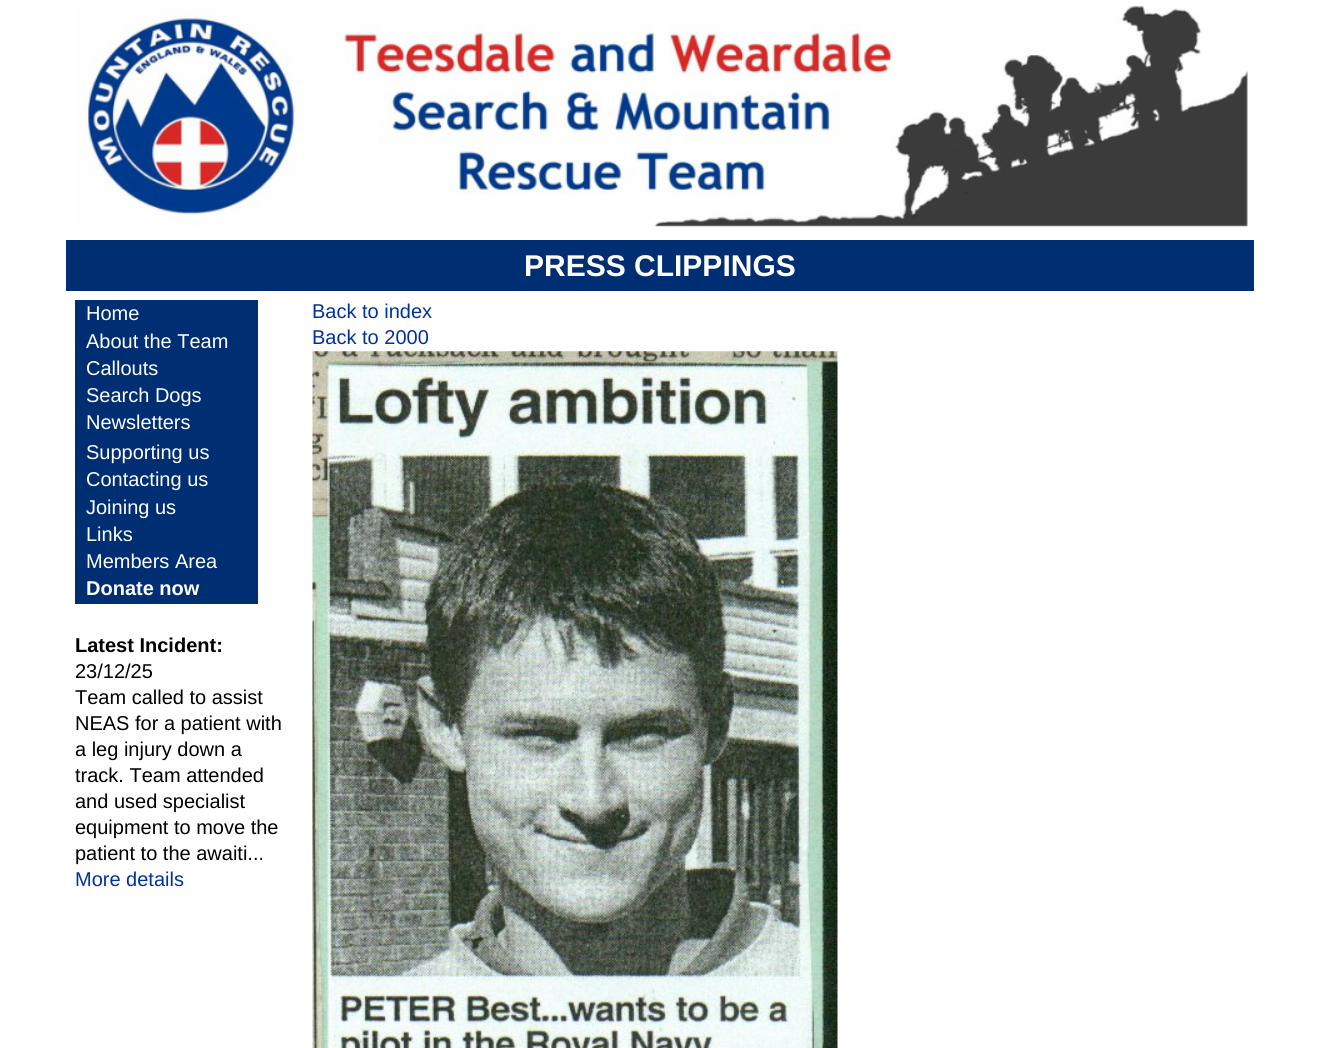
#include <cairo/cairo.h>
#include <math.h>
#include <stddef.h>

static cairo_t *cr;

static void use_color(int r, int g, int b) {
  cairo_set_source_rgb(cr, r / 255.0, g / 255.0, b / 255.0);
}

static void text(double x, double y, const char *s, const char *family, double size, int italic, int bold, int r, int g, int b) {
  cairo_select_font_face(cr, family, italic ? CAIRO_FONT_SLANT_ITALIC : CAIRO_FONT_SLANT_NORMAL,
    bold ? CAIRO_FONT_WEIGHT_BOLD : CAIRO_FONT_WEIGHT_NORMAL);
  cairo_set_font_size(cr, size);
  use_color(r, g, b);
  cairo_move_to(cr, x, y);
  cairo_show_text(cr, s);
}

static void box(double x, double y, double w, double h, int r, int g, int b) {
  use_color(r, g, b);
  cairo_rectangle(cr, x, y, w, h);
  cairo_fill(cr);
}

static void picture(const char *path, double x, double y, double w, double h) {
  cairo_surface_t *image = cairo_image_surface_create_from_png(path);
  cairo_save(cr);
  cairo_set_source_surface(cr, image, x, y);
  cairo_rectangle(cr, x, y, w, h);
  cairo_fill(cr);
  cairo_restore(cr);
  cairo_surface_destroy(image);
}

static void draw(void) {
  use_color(255, 255, 255);
  cairo_paint(cr);
  picture("img_01.png", 75, 6, 1173, 221);
  box(66, 240, 1188, 51, 0, 46, 115);
  box(75, 300, 183, 304, 0, 46, 115);
  picture("img_02.png", 312, 351, 526, 697);
  text(524, 276, "PRESS CLIPPINGS", "Liberation Sans", 30, 0, 1, 255, 255, 255);
  text(86, 320, "Home", "Liberation Sans", 20, 0, 0, 255, 255, 255);
  text(86, 348, "About the Team", "Liberation Sans", 20, 0, 0, 255, 255, 255);
  text(86, 375, "Callouts", "Liberation Sans", 20, 0, 0, 255, 255, 255);
  text(86, 402, "Search Dogs", "Liberation Sans", 20, 0, 0, 255, 255, 255);
  text(86, 429, "Newsletters", "Liberation Sans", 20, 0, 0, 255, 255, 255);
  text(86, 459, "Supporting us", "Liberation Sans", 20, 0, 0, 255, 255, 255);
  text(86, 486, "Contacting us", "Liberation Sans", 20, 0, 0, 255, 255, 255);
  text(86, 514, "Joining us", "Liberation Sans", 20, 0, 0, 255, 255, 255);
  text(86, 541, "Links", "Liberation Sans", 20, 0, 0, 255, 255, 255);
  text(86, 568, "Members Area", "Liberation Sans", 20, 0, 0, 255, 255, 255);
  text(86, 595, "Donate now", "Liberation Sans", 20, 0, 1, 255, 255, 255);
  text(75, 652, "Latest Incident:", "Liberation Sans", 20, 0, 1, 0, 0, 0);
  text(75, 678, "23/12/25", "Liberation Sans", 20, 0, 0, 0, 0, 0);
  text(75, 704, "Team called to assist", "Liberation Sans", 20, 0, 0, 0, 0, 0);
  text(75, 730, "NEAS for a patient with", "Liberation Sans", 20, 0, 0, 0, 0, 0);
  text(75, 756, "a leg injury down a", "Liberation Sans", 20, 0, 0, 0, 0, 0);
  text(75, 782, "track. Team attended", "Liberation Sans", 20, 0, 0, 0, 0, 0);
  text(75, 808, "and used specialist", "Liberation Sans", 20, 0, 0, 0, 0, 0);
  text(75, 834, "equipment to move the", "Liberation Sans", 20, 0, 0, 0, 0, 0);
  text(75, 860, "patient to the awaiti...", "Liberation Sans", 20, 0, 0, 0, 0, 0);
  text(75, 886, "More details", "Liberation Sans", 20, 0, 0, 0, 51, 153);
  text(312, 318, "Back to index", "Liberation Sans", 20, 0, 0, 0, 51, 153);
  text(312, 344, "Back to 2000", "Liberation Sans", 20, 0, 0, 0, 51, 153);
}

int main(void) {
  cairo_surface_t *surface = cairo_image_surface_create(CAIRO_FORMAT_RGB24, 1320, 1048);
  cr = cairo_create(surface);
  cairo_font_options_t *options = cairo_font_options_create();
  cairo_font_options_set_hint_metrics(options, CAIRO_HINT_METRICS_OFF);
  cairo_font_options_set_hint_style(options, CAIRO_HINT_STYLE_NONE);
  cairo_set_font_options(cr, options);
  cairo_set_miter_limit(cr, 4);
  draw();
  cairo_surface_write_to_png(surface, "out.png");
  cairo_font_options_destroy(options);
  cairo_destroy(cr);
  cairo_surface_destroy(surface);
  return 0;
}
